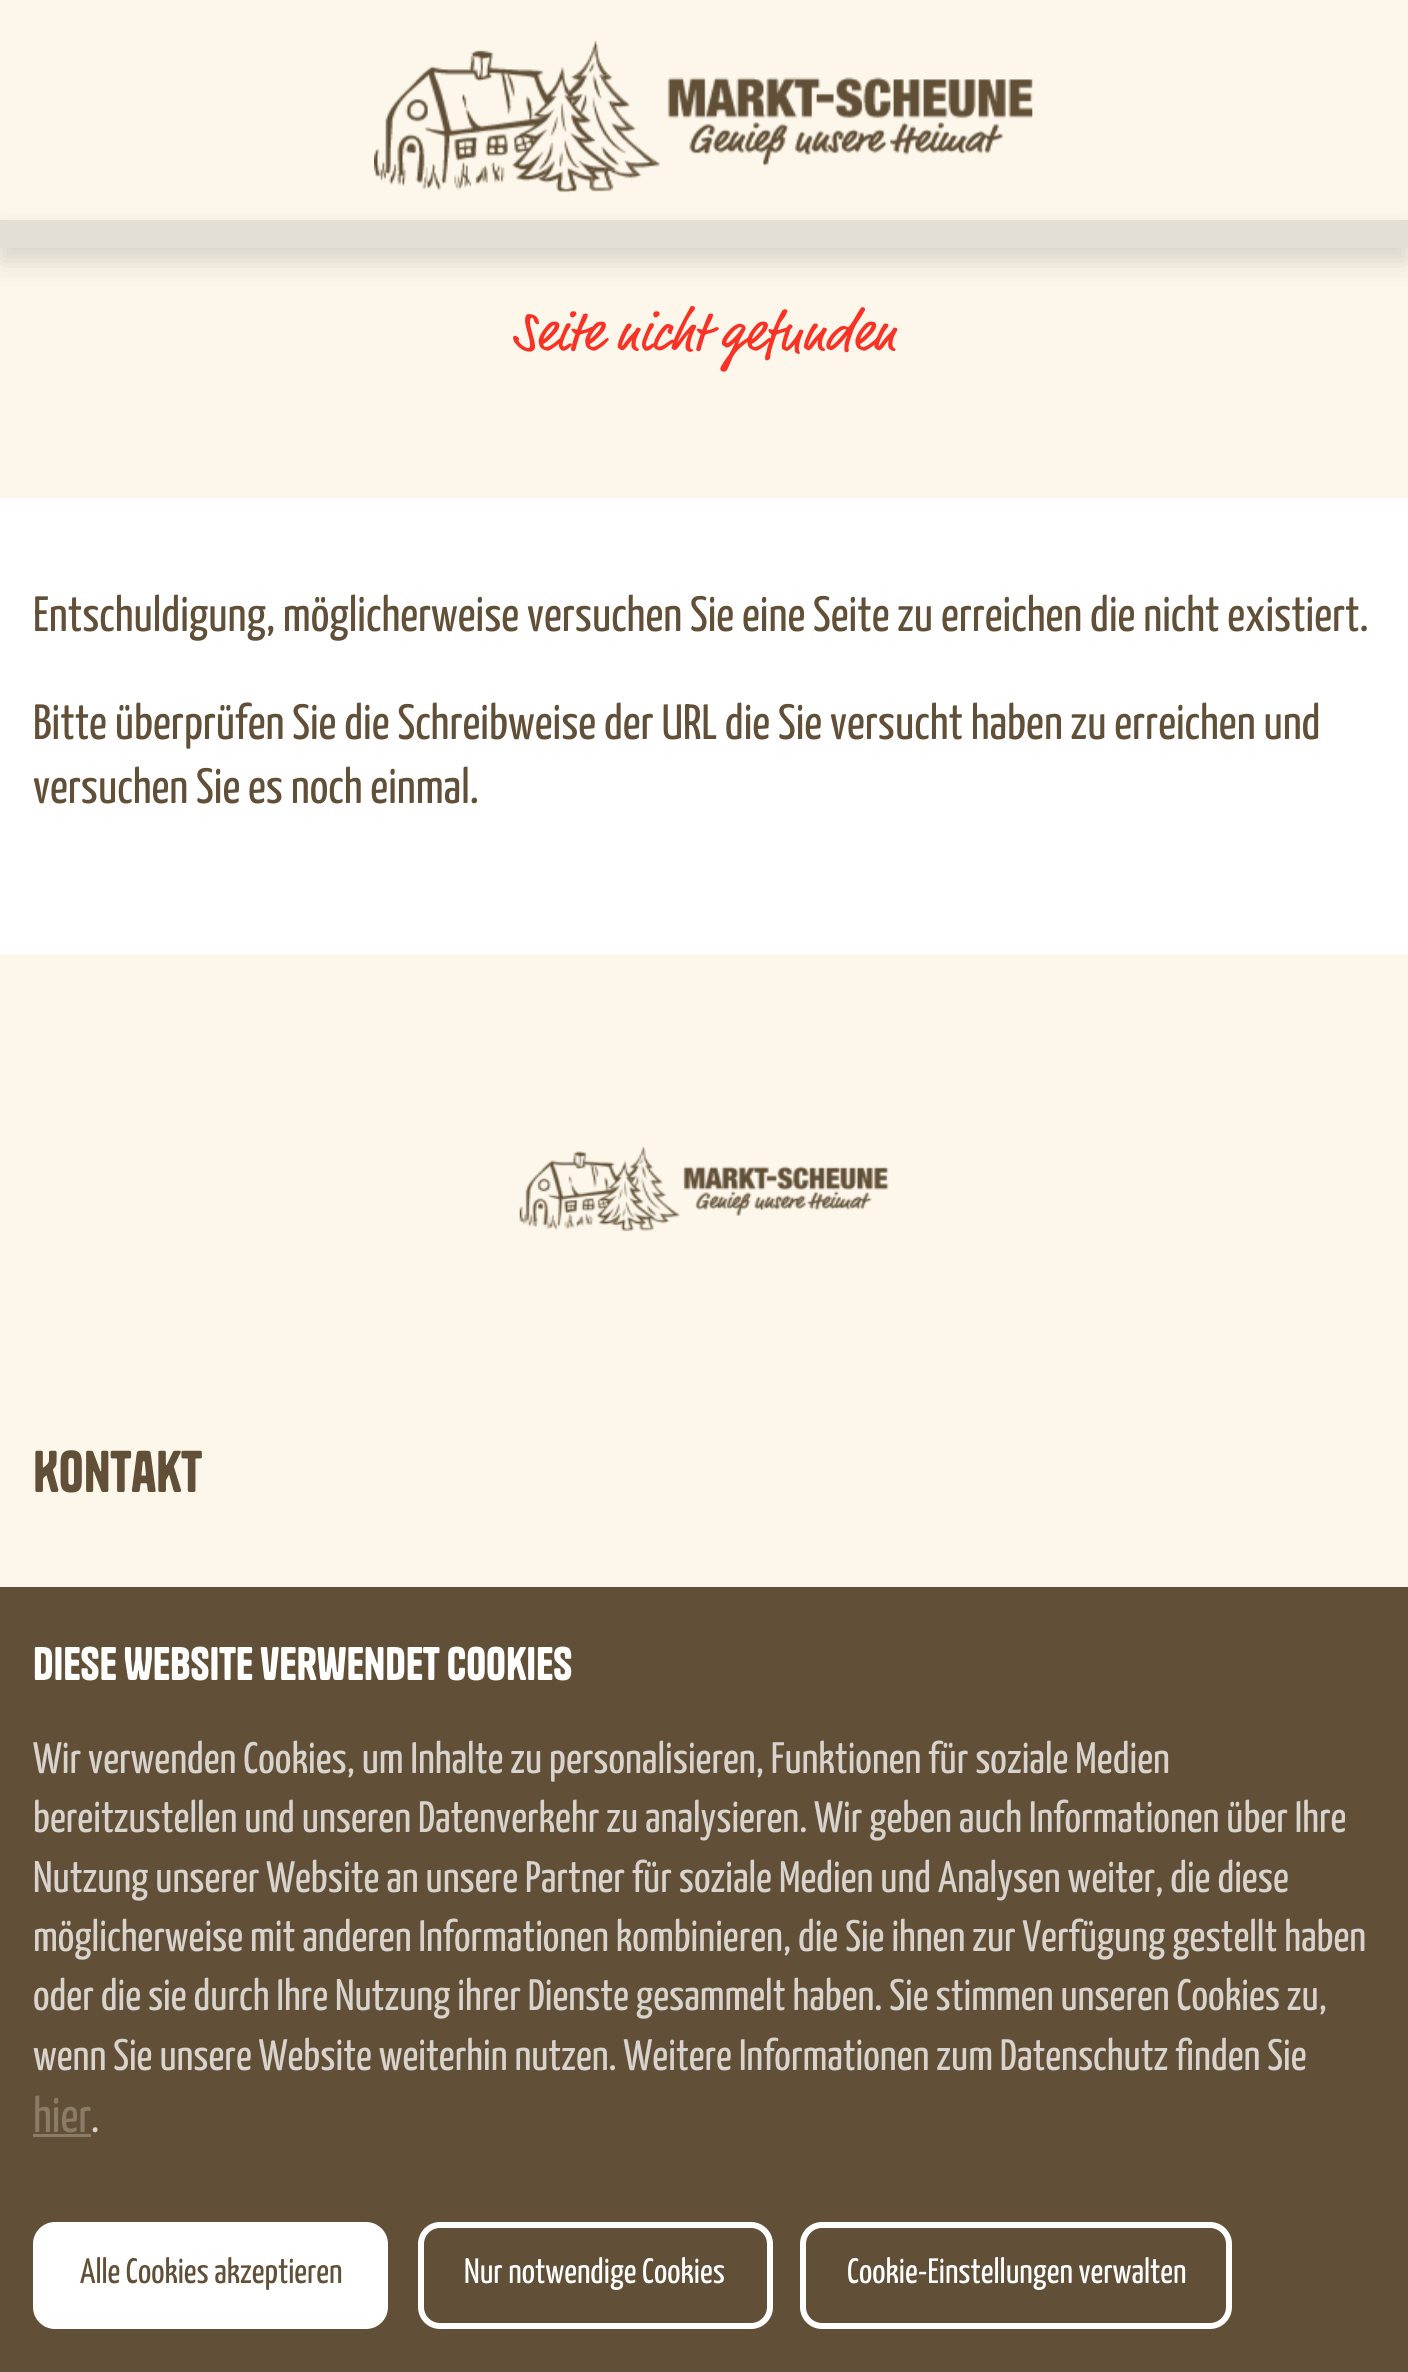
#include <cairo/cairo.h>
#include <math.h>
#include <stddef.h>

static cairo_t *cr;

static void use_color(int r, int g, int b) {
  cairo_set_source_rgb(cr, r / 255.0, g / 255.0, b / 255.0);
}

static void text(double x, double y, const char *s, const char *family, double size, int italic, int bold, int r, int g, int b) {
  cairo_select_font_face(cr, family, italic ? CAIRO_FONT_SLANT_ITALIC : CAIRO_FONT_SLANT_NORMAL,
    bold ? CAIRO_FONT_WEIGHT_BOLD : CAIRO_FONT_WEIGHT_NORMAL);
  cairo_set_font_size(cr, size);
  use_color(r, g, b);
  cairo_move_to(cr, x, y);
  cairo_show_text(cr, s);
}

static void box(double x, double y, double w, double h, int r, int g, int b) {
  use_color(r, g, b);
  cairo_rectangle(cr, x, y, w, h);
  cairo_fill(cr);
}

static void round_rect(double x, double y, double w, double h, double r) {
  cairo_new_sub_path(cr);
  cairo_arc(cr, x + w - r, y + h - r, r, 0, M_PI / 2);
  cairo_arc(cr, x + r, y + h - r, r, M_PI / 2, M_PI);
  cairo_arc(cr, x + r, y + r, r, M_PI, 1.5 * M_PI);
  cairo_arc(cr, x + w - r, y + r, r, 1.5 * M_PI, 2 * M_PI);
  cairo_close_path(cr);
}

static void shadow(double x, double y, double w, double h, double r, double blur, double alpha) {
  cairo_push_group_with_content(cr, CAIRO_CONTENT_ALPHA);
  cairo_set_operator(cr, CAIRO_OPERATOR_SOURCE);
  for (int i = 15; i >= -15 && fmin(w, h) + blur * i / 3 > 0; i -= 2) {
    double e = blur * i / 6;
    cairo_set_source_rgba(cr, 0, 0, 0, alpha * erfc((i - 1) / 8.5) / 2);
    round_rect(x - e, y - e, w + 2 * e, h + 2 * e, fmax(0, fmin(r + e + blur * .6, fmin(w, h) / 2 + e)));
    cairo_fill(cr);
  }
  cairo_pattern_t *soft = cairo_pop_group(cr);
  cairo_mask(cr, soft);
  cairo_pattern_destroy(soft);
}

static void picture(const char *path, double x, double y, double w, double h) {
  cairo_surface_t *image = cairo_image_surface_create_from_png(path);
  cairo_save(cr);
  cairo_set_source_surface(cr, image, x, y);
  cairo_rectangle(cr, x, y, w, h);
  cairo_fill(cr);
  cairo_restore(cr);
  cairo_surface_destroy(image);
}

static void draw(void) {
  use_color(253, 247, 235);
  cairo_paint(cr);
  picture("img_01.png", 374, 41, 659, 152);
  cairo_save(cr);
  cairo_set_fill_rule(cr, CAIRO_FILL_RULE_EVEN_ODD);
  cairo_new_path(cr);
  cairo_move_to(cr, 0, 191);
  cairo_line_to(cr, 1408, 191);
  cairo_line_to(cr, 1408, 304);
  cairo_line_to(cr, 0, 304);
  cairo_close_path(cr);
  cairo_move_to(cr, 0, 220);
  cairo_line_to(cr, 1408, 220);
  cairo_line_to(cr, 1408, 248);
  cairo_line_to(cr, 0, 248);
  cairo_close_path(cr);
  cairo_clip(cr);
  use_color(0, 0, 0);
  shadow(0, 234, 1408, 27, 0, 14, 0.15);
  cairo_restore(cr);
  cairo_set_source_rgba(cr, 0, 0, 0, 0.1);
  cairo_rectangle(cr, 0, 220, 1408, 28);
  cairo_fill(cr);
  box(0, 498, 1408, 456, 255, 255, 255);
  picture("img_02.png", 519, 1146, 370, 86);
  box(0, 1587, 1408, 785, 97, 80, 55);
  box(33, 2134, 58, 3, 139, 124, 103);
  use_color(255, 255, 255);
  round_rect(36, 2225, 349, 101, 19);
  cairo_fill_preserve(cr);
  cairo_set_line_width(cr, 6);
  cairo_stroke(cr);
  round_rect(421, 2225, 349, 101, 19);
  cairo_stroke(cr);
  round_rect(803, 2225, 426, 101, 19);
  cairo_stroke(cr);
  text(512, 350, "Seite nicht gefunden", "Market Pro", 55, 0, 0, 248, 51, 37);
  text(33, 631, "Entschuldigung, möglicherweise versuchen Sie eine Seite zu erreichen die nicht existiert.", "Yanone Kaffeesatz ExtraLight", 49.5, 0, 0, 97, 80, 55);
  text(33, 739, "Bitte überprüfen Sie die Schreibweise der URL die Sie versucht haben zu erreichen und", "Yanone Kaffeesatz ExtraLight", 49.5, 0, 0, 97, 80, 55);
  text(33, 803, "versuchen Sie es noch einmal.", "Yanone Kaffeesatz ExtraLight", 49.5, 0, 0, 97, 80, 55);
  text(33, 1492, "Kontakt", "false", 55, 0, 0, 97, 80, 55);
  text(33, 1680, "Diese Website verwendet Cookies", "false", 44, 0, 0, 255, 255, 255);
  text(33, 1773, "Wir verwenden Cookies, um Inhalte zu personalisieren, Funktionen für soziale Medien", "Yanone Kaffeesatz ExtraLight", 44, 0, 0, 216, 211, 205);
  text(33, 1832, "bereitzustellen und unseren Datenverkehr zu analysieren. Wir geben auch Informationen über Ihre", "Yanone Kaffeesatz ExtraLight", 44, 0, 0, 216, 211, 205);
  text(33, 1892, "Nutzung unserer Website an unsere Partner für soziale Medien und Analysen weiter, die diese", "Yanone Kaffeesatz ExtraLight", 44, 0, 0, 216, 211, 205);
  text(33, 1951, "möglicherweise mit anderen Informationen kombinieren, die Sie ihnen zur Verfügung gestellt haben", "Yanone Kaffeesatz ExtraLight", 44, 0, 0, 216, 211, 205);
  text(33, 2010, "oder die sie durch Ihre Nutzung ihrer Dienste gesammelt haben. Sie stimmen unseren Cookies zu,", "Yanone Kaffeesatz ExtraLight", 44, 0, 0, 216, 211, 205);
  text(33, 2070, "wenn Sie unsere Website weiterhin nutzen. Weitere Informationen zum Datenschutz finden Sie", "Yanone Kaffeesatz ExtraLight", 44, 0, 0, 216, 211, 205);
  text(33, 2132, "hier", "Yanone Kaffeesatz ExtraLight", 49.5, 0, 0, 139, 124, 103);
  text(91, 2132, ".", "Yanone Kaffeesatz ExtraLight", 44, 0, 0, 216, 211, 205);
  text(80, 2283, "Alle Cookies akzeptieren", "Yanone Kaffeesatz ExtraLight", 35.25, 0, 0, 97, 80, 55);
  text(464, 2283, "Nur notwendige Cookies", "Yanone Kaffeesatz ExtraLight", 35.25, 0, 0, 255, 255, 255);
  text(847, 2283, "Cookie-Einstellungen verwalten", "Yanone Kaffeesatz ExtraLight", 35.25, 0, 0, 255, 255, 255);
}

int main(void) {
  cairo_surface_t *surface = cairo_image_surface_create(CAIRO_FORMAT_RGB24, 1408, 2372);
  cr = cairo_create(surface);
  cairo_font_options_t *options = cairo_font_options_create();
  cairo_font_options_set_hint_metrics(options, CAIRO_HINT_METRICS_OFF);
  cairo_font_options_set_hint_style(options, CAIRO_HINT_STYLE_NONE);
  cairo_set_font_options(cr, options);
  cairo_set_miter_limit(cr, 4);
  draw();
  cairo_surface_write_to_png(surface, "out.png");
  cairo_font_options_destroy(options);
  cairo_destroy(cr);
  cairo_surface_destroy(surface);
  return 0;
}
